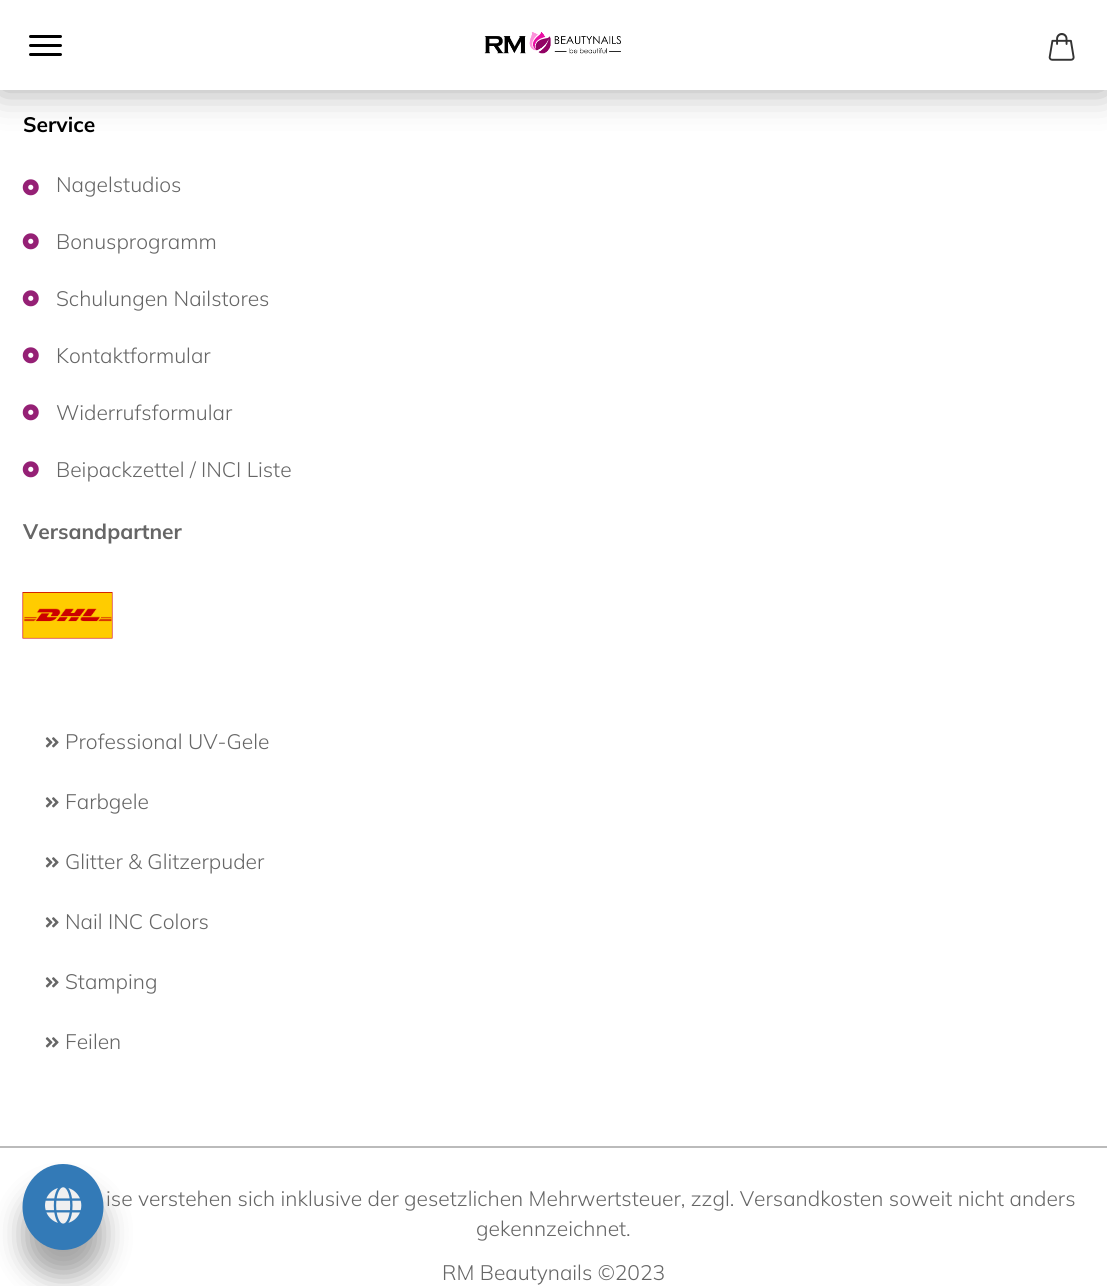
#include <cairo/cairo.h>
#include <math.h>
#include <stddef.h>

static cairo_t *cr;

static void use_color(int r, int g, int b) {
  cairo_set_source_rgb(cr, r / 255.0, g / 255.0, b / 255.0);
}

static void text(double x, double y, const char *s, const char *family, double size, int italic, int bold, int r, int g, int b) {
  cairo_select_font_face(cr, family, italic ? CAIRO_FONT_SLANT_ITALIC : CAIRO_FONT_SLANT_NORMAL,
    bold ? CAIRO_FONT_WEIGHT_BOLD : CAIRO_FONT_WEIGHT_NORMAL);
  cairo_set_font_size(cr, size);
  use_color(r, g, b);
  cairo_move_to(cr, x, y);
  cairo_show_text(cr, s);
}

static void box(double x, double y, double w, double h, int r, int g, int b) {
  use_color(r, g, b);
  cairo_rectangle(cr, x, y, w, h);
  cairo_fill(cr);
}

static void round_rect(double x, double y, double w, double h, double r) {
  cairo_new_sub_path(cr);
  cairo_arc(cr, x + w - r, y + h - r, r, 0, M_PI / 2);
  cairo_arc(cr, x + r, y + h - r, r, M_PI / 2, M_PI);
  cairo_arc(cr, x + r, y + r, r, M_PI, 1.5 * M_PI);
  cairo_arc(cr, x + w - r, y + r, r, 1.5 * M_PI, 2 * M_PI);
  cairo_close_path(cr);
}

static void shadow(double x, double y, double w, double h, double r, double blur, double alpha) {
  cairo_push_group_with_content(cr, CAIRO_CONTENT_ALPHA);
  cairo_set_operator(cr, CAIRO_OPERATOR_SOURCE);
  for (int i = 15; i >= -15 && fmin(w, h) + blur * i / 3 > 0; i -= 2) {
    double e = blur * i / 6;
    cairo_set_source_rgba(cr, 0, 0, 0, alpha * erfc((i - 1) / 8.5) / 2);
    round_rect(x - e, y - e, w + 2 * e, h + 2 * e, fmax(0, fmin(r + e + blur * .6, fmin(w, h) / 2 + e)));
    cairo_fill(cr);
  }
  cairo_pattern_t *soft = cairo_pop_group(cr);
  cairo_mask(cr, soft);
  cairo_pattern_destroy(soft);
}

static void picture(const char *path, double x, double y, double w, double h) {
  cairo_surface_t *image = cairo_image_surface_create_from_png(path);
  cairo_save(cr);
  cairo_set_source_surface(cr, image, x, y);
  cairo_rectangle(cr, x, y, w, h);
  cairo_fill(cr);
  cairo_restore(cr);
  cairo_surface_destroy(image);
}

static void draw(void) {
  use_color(255, 255, 255);
  cairo_paint(cr);
  use_color(0, 0, 0);
  shadow(0, 0, 1107, 90, 0, 19, 0.35);
  box(0, 0, 1107, 90, 255, 255, 255);
  picture("img_01.png", 484, 32, 137, 22);
  picture("img_02.png", 1048, 33, 27, 28);
  use_color(0, 0, 0);
  round_rect(29, 44, 33, 3, 1.5);
  cairo_fill(cr);
  round_rect(29, 35, 33, 3, 1.5);
  cairo_fill(cr);
  round_rect(29, 53, 33, 3, 1.5);
  cairo_fill(cr);
  box(0, 1146, 1107, 2, 187, 187, 187);
  picture("img_03.png", 22, 179, 17, 17);
  picture("img_03.png", 22, 233, 17, 17);
  picture("img_03.png", 22, 290, 17, 17);
  picture("img_03.png", 22, 347, 17, 17);
  picture("img_03.png", 22, 404, 17, 17);
  picture("img_03.png", 22, 461, 17, 17);
  picture("img_04.png", 22, 592, 91, 47);
  picture("img_05.png", 45, 737, 14, 11);
  picture("img_05.png", 45, 797, 14, 11);
  picture("img_05.png", 45, 857, 14, 11);
  picture("img_05.png", 45, 917, 14, 11);
  picture("img_05.png", 45, 977, 14, 11);
  picture("img_05.png", 45, 1037, 14, 11);
  use_color(0, 0, 0);
  shadow(23, 1191, 81, 86, 40.5, 13.5, 0.35);
  use_color(51, 122, 183);
  cairo_new_path(cr);
  cairo_move_to(cr, 63, 1164);
  cairo_curve_to(cr, 85.5, 1164, 103.5, 1183.5, 103.5, 1207);
  cairo_curve_to(cr, 103.5, 1230.5, 85.5, 1250, 63, 1250);
  cairo_curve_to(cr, 40.5, 1250, 22.5, 1230.5, 22.5, 1207);
  cairo_curve_to(cr, 22.5, 1183.5, 40.5, 1164, 63, 1164);
  cairo_close_path(cr);
  cairo_fill(cr);
  picture("img_06.png", 45, 1187, 37, 37);
  text(23, 132, "Service", "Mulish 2 ExtraLight", 21, 0, 0, 0, 0, 0);
  text(56, 192, "Nagelstudios", "Mulish ExtraLight", 21, 0, 0, 102, 102, 102);
  text(56, 249, "Bonusprogramm", "Mulish ExtraLight", 21, 0, 0, 102, 102, 102);
  text(56, 306, "Schulungen Nailstores", "Mulish ExtraLight", 21, 0, 0, 102, 102, 102);
  text(56, 363, "Kontaktformular", "Mulish ExtraLight", 21, 0, 0, 102, 102, 102);
  text(56, 420, "Widerrufsformular", "Mulish ExtraLight", 21, 0, 0, 102, 102, 102);
  text(56, 477, "Beipackzettel / INCI Liste", "Mulish ExtraLight", 21, 0, 0, 102, 102, 102);
  text(23, 539, "Versandpartner", "Mulish 2 ExtraLight", 21, 0, 0, 102, 102, 102);
  text(65, 749, "Professional UV-Gele", "Mulish ExtraLight", 21, 0, 0, 102, 102, 102);
  text(65, 809, "Farbgele", "Mulish ExtraLight", 21, 0, 0, 102, 102, 102);
  text(65, 869, "Glitter & Glitzerpuder", "Mulish ExtraLight", 21, 0, 0, 102, 102, 102);
  text(65, 929, "Nail INC Colors", "Mulish ExtraLight", 21, 0, 0, 102, 102, 102);
  text(65, 989, "Stamping", "Mulish ExtraLight", 21, 0, 0, 102, 102, 102);
  text(65, 1049, "Feilen", "Mulish ExtraLight", 21, 0, 0, 102, 102, 102);
  text(106, 1206, "ise verstehen sich inklusive der gesetzlichen Mehrwertsteuer, zzgl. Versandkosten soweit nicht anders", "Mulish ExtraLight", 21, 0, 0, 102, 102, 102);
  text(476, 1236, "gekennzeichnet.", "Mulish ExtraLight", 21, 0, 0, 102, 102, 102);
  text(442, 1280, "RM Beautynails ©2023", "Mulish ExtraLight", 21, 0, 0, 102, 102, 102);
}

int main(void) {
  cairo_surface_t *surface = cairo_image_surface_create(CAIRO_FORMAT_RGB24, 1107, 1286);
  cr = cairo_create(surface);
  cairo_font_options_t *options = cairo_font_options_create();
  cairo_font_options_set_hint_metrics(options, CAIRO_HINT_METRICS_OFF);
  cairo_font_options_set_hint_style(options, CAIRO_HINT_STYLE_NONE);
  cairo_set_font_options(cr, options);
  cairo_set_miter_limit(cr, 4);
  draw();
  cairo_surface_write_to_png(surface, "out.png");
  cairo_font_options_destroy(options);
  cairo_destroy(cr);
  cairo_surface_destroy(surface);
  return 0;
}
